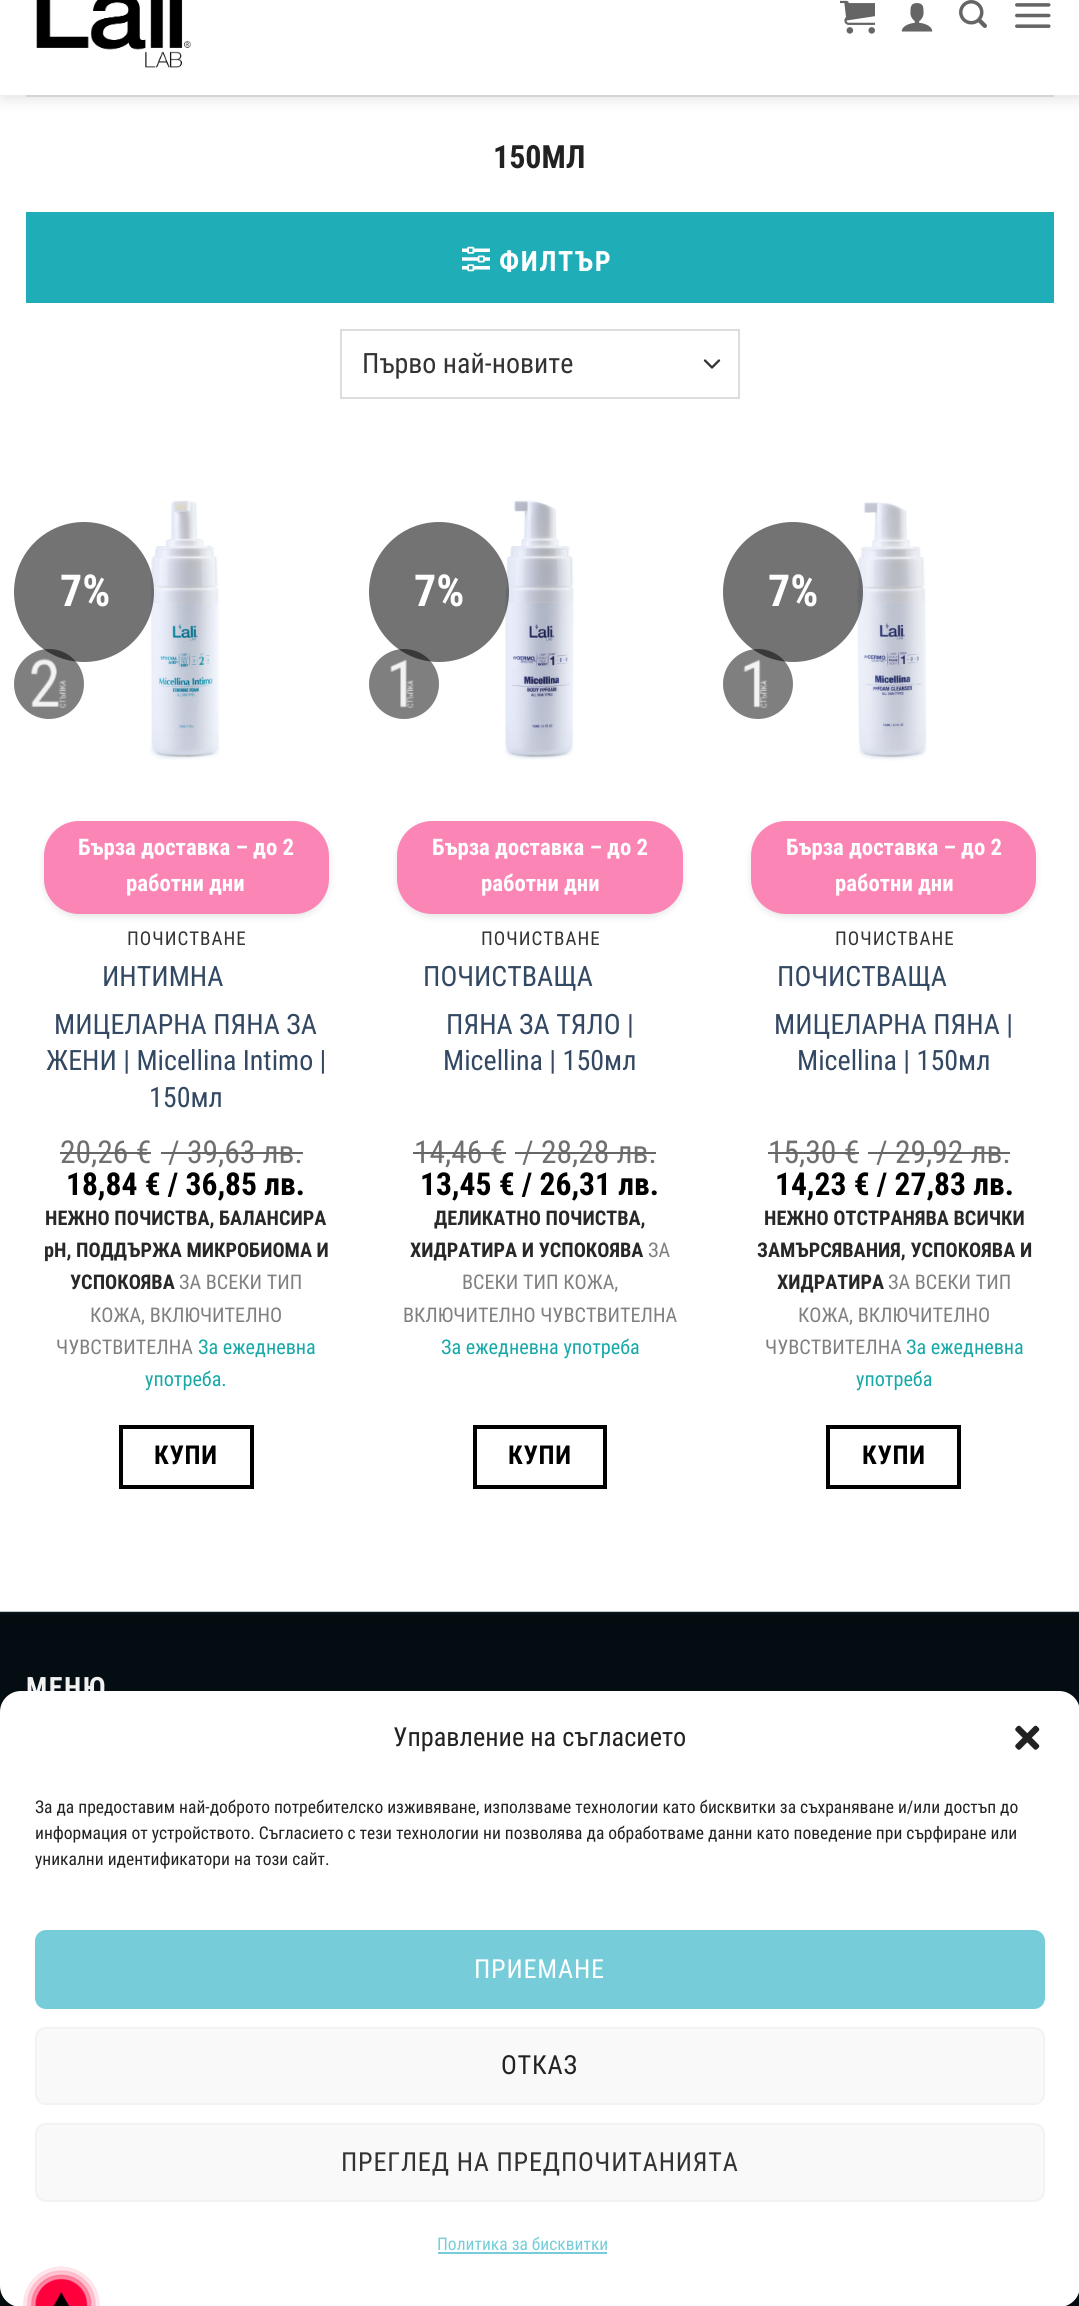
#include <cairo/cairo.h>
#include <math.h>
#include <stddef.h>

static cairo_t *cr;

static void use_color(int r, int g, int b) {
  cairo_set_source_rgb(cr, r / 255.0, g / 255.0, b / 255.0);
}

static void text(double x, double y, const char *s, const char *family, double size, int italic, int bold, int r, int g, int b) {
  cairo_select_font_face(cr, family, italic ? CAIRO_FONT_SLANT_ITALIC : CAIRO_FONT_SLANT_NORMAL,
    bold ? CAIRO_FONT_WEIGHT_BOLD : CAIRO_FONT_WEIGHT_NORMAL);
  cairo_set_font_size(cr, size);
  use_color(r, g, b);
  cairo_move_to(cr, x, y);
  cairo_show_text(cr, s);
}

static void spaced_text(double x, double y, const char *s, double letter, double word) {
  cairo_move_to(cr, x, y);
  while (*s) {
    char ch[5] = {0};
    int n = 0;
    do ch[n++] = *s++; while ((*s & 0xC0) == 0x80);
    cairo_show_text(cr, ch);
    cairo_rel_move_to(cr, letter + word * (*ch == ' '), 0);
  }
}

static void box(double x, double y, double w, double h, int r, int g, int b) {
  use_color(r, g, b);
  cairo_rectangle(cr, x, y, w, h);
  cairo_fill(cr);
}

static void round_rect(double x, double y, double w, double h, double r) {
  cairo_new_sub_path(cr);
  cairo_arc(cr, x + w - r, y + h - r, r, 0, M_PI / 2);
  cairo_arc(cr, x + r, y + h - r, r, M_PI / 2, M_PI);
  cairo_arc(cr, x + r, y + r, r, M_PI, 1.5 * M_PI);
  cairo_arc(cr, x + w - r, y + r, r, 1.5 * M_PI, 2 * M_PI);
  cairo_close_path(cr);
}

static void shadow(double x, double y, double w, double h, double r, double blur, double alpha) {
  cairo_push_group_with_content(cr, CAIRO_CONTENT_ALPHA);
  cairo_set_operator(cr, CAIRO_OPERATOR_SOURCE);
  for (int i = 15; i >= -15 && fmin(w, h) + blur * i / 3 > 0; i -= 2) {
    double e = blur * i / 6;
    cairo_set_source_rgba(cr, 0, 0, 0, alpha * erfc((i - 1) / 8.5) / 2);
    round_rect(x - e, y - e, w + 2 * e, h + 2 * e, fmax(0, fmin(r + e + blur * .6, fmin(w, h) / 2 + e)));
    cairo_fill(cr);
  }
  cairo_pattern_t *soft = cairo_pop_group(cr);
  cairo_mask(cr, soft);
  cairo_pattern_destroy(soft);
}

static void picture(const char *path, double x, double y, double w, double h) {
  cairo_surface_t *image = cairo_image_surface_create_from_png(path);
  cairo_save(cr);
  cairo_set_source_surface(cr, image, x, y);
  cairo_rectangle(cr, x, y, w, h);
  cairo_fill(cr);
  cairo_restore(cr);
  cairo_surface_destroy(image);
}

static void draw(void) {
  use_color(255, 255, 255);
  cairo_paint(cr);
  use_color(0, 0, 0);
  shadow(2, -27, 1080, 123, 0, 9, 0.15);
  box(0, 0, 1079, 95, 255, 255, 255);
  picture("img_01.png", 36, 0, 156, 68);
  picture("img_02.png", 840, 0, 35, 34);
  picture("img_03.png", 901, 3, 32, 29);
  picture("img_04.png", 959, 0, 28, 28);
  picture("img_05.png", 1015, 3, 36, 25);
  box(26, 95, 1028, 2, 212, 212, 212);
  box(26, 212, 1028, 91, 31, 174, 184);
  picture("img_06.png", 462, 246, 28, 26);
  cairo_new_path(cr);
  cairo_move_to(cr, 705, 360.5);
  cairo_line_to(cr, 712, 367.5);
  cairo_line_to(cr, 719, 360.5);
  use_color(51, 51, 51);
  cairo_set_line_width(cr, 2.3);
  cairo_set_line_cap(cr, CAIRO_LINE_CAP_ROUND);
  cairo_set_line_join(cr, CAIRO_LINE_JOIN_ROUND);
  cairo_stroke(cr);
  cairo_rectangle(cr, 341, 330, 398, 68);
  use_color(221, 221, 221);
  cairo_set_line_width(cr, 2);
  cairo_set_line_cap(cr, CAIRO_LINE_CAP_BUTT);
  cairo_set_line_join(cr, CAIRO_LINE_JOIN_MITER);
  cairo_stroke(cr);
  picture("img_08.png", 149, 500, 71, 260);
  cairo_set_source_rgba(cr, 0, 0, 0, 0.55);
  cairo_arc(cr, 84, 592, 70, 0, 2 * M_PI);
  cairo_fill(cr);
  cairo_set_source_rgba(cr, 0, 0, 0, 0.5);
  cairo_arc(cr, 49, 684, 35, 0, 2 * M_PI);
  cairo_fill(cr);
  picture("img_07.png", 31, 658, 36, 50);
  use_color(0, 0, 0);
  shadow(44, 824, 285, 93, 35, 3.5, 0.1);
  use_color(251, 134, 182);
  round_rect(44, 821, 285, 93, 35);
  cairo_fill(cr);
  cairo_rectangle(cr, 121, 1427, 131, 60);
  use_color(0, 0, 0);
  cairo_set_line_width(cr, 4);
  cairo_stroke(cr);
  picture("img_10.png", 504, 500, 70, 260);
  cairo_set_source_rgba(cr, 0, 0, 0, 0.55);
  cairo_arc(cr, 439, 592, 70, 0, 2 * M_PI);
  cairo_fill(cr);
  cairo_set_source_rgba(cr, 0, 0, 0, 0.5);
  cairo_arc(cr, 404, 684, 35, 0, 2 * M_PI);
  cairo_fill(cr);
  picture("img_09.png", 390, 659, 24, 49);
  use_color(0, 0, 0);
  shadow(397, 824, 286, 93, 35, 3.5, 0.1);
  use_color(251, 134, 182);
  round_rect(397, 821, 286, 93, 35);
  cairo_fill(cr);
  cairo_rectangle(cr, 475, 1427, 130, 60);
  use_color(0, 0, 0);
  cairo_stroke(cr);
  picture("img_12.png", 857, 502, 70, 259);
  cairo_set_source_rgba(cr, 0, 0, 0, 0.55);
  cairo_arc(cr, 793, 592, 70, 0, 2 * M_PI);
  cairo_fill(cr);
  cairo_set_source_rgba(cr, 0, 0, 0, 0.5);
  cairo_arc(cr, 758, 684, 35, 0, 2 * M_PI);
  cairo_fill(cr);
  picture("img_11.png", 743, 659, 25, 49);
  use_color(0, 0, 0);
  shadow(751, 824, 285, 93, 35, 3.5, 0.1);
  use_color(251, 134, 182);
  round_rect(751, 821, 285, 93, 35);
  cairo_fill(cr);
  cairo_rectangle(cr, 828, 1427, 131, 60);
  use_color(0, 0, 0);
  cairo_stroke(cr);
  picture("img_13.png", 0, 1611, 1079, 695);
  use_color(0, 0, 0);
  shadow(0, 1701, 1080, 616, 21, 5, 0.23);
  shadow(0, 1708, 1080, 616, 21, 17.5, 0.19);
  text(493, 168, "150МЛ", "Roboto Condensed", 32, 0, 1, 34, 34, 34);
  cairo_set_font_size(cr, 28);
  use_color(255, 255, 255);
  spaced_text(499, 271, "ФИЛТЪР", 1.5, 0);
  text(362, 373, "Първо най-новите", "Roboto Condensed", 28, 0, 0, 51, 51, 51);
  text(60, 606, "7%", "Roboto Condensed", 44, 0, 1, 255, 255, 255);
  text(78, 855, "Бърза доставка – до 2", "Roboto Condensed", 22.75, 0, 1, 255, 255, 255);
  text(126, 891, "работни дни", "Roboto Condensed", 22.75, 0, 1, 255, 255, 255);
  cairo_select_font_face(cr, "Roboto Condensed", CAIRO_FONT_SLANT_NORMAL, CAIRO_FONT_WEIGHT_NORMAL);
  cairo_set_font_size(cr, 19);
  use_color(51, 51, 51);
  spaced_text(127, 945, "ПОЧИСТВАНЕ", 1, 0);
  text(102, 986, "ИНТИМНА", "Roboto Condensed", 28, 0, 0, 51, 72, 98);
  text(54, 1034, "МИЦЕЛАРНА ПЯНА ЗА", "Roboto Condensed", 28, 0, 0, 51, 72, 98);
  text(46, 1070, "ЖЕНИ | Micellina Intimo |", "Roboto Condensed", 28, 0, 0, 51, 72, 98);
  text(149, 1107, "150мл", "Roboto Condensed", 28, 0, 0, 51, 72, 98);
  text(60, 1163, "20,26 €", "Roboto Condensed", 31.5, 0, 0, 112, 112, 112);
  box(60, 1152, 91, 2, 102, 102, 102);
  text(168, 1163, "/ 39,63 лв.", "Roboto Condensed", 31.5, 0, 0, 112, 112, 112);
  box(161, 1152, 142, 2, 102, 102, 102);
  text(66, 1195, "18,84 € / 36,85 лв.", "Roboto Condensed", 31.5, 0, 1, 0, 0, 0);
  text(45, 1225, "НЕЖНО ПОЧИСТВА, БАЛАНСИРА", "Roboto Condensed", 20.2, 0, 1, 40, 40, 40);
  text(44, 1257, "pH, ПОДДЪРЖА МИКРОБИОМА И", "Roboto Condensed", 20.2, 0, 1, 40, 40, 40);
  text(70, 1289, "УСПОКОЯВА", "Roboto Condensed", 20.2, 0, 1, 40, 40, 40);
  text(179, 1289, "ЗА ВСЕКИ ТИП", "Roboto Condensed", 20.2, 0, 0, 128, 128, 128);
  text(90, 1322, "КОЖА, ВКЛЮЧИТЕЛНО", "Roboto Condensed", 20.2, 0, 0, 128, 128, 128);
  text(56, 1354, "ЧУВСТВИТЕЛНА", "Roboto Condensed", 20.2, 0, 0, 128, 128, 128);
  text(198, 1354, "За ежедневна", "Roboto Condensed", 20.2, 0, 0, 24, 168, 168);
  text(145, 1386, "употреба.", "Roboto Condensed", 20.2, 0, 0, 24, 168, 168);
  cairo_select_font_face(cr, "Roboto Condensed", CAIRO_FONT_SLANT_NORMAL, CAIRO_FONT_WEIGHT_BOLD);
  cairo_set_font_size(cr, 26);
  use_color(0, 0, 0);
  spaced_text(154, 1464, "КУПИ", 0.8, 0);
  text(414, 606, "7%", "Roboto Condensed", 44, 0, 1, 255, 255, 255);
  text(432, 855, "Бърза доставка – до 2", "Roboto Condensed", 22.75, 0, 1, 255, 255, 255);
  text(481, 891, "работни дни", "Roboto Condensed", 22.75, 0, 1, 255, 255, 255);
  cairo_select_font_face(cr, "Roboto Condensed", CAIRO_FONT_SLANT_NORMAL, CAIRO_FONT_WEIGHT_NORMAL);
  cairo_set_font_size(cr, 19);
  use_color(51, 51, 51);
  spaced_text(481, 945, "ПОЧИСТВАНЕ", 1, 0);
  text(423, 986, "ПОЧИСТВАЩА", "Roboto Condensed", 28, 0, 0, 51, 72, 98);
  text(446, 1034, "ПЯНА ЗА ТЯЛО |", "Roboto Condensed", 28, 0, 0, 51, 72, 98);
  text(443, 1070, "Micellina | 150мл", "Roboto Condensed", 28, 0, 0, 51, 72, 98);
  text(414, 1163, "14,46 €", "Roboto Condensed", 31.5, 0, 0, 112, 112, 112);
  box(413, 1152, 93, 2, 102, 102, 102);
  text(522, 1163, "/ 28,28 лв.", "Roboto Condensed", 31.5, 0, 0, 112, 112, 112);
  box(515, 1152, 141, 2, 102, 102, 102);
  text(420, 1195, "13,45 € / 26,31 лв.", "Roboto Condensed", 31.5, 0, 1, 0, 0, 0);
  text(434, 1225, "ДЕЛИКАТНО ПОЧИСТВА,", "Roboto Condensed", 20.2, 0, 1, 40, 40, 40);
  text(410, 1257, "ХИДРАТИРА И УСПОКОЯВА", "Roboto Condensed", 20.2, 0, 1, 40, 40, 40);
  text(648, 1257, "ЗА", "Roboto Condensed", 20.2, 0, 0, 128, 128, 128);
  text(462, 1289, "ВСЕКИ ТИП КОЖА,", "Roboto Condensed", 20.2, 0, 0, 128, 128, 128);
  text(403, 1322, "ВКЛЮЧИТЕЛНО ЧУВСТВИТЕЛНА", "Roboto Condensed", 20.2, 0, 0, 128, 128, 128);
  text(441, 1354, "За ежедневна употреба", "Roboto Condensed", 20.2, 0, 0, 24, 168, 168);
  cairo_select_font_face(cr, "Roboto Condensed", CAIRO_FONT_SLANT_NORMAL, CAIRO_FONT_WEIGHT_BOLD);
  cairo_set_font_size(cr, 26);
  use_color(0, 0, 0);
  spaced_text(508, 1464, "КУПИ", 0.8, 0);
  text(768, 606, "7%", "Roboto Condensed", 44, 0, 1, 255, 255, 255);
  text(786, 855, "Бърза доставка – до 2", "Roboto Condensed", 22.75, 0, 1, 255, 255, 255);
  text(835, 891, "работни дни", "Roboto Condensed", 22.75, 0, 1, 255, 255, 255);
  cairo_select_font_face(cr, "Roboto Condensed", CAIRO_FONT_SLANT_NORMAL, CAIRO_FONT_WEIGHT_NORMAL);
  cairo_set_font_size(cr, 19);
  use_color(51, 51, 51);
  spaced_text(835, 945, "ПОЧИСТВАНЕ", 1, 0);
  text(777, 986, "ПОЧИСТВАЩА", "Roboto Condensed", 28, 0, 0, 51, 72, 98);
  text(774, 1034, "МИЦЕЛАРНА ПЯНА |", "Roboto Condensed", 28, 0, 0, 51, 72, 98);
  text(797, 1070, "Micellina | 150мл", "Roboto Condensed", 28, 0, 0, 51, 72, 98);
  text(768, 1163, "15,30 €", "Roboto Condensed", 31.5, 0, 0, 112, 112, 112);
  box(768, 1152, 91, 2, 102, 102, 102);
  text(876, 1163, "/ 29,92 лв.", "Roboto Condensed", 31.5, 0, 0, 112, 112, 112);
  box(868, 1152, 142, 2, 102, 102, 102);
  text(775, 1195, "14,23 € / 27,83 лв.", "Roboto Condensed", 31.5, 0, 1, 0, 0, 0);
  text(764, 1225, "НЕЖНО ОТСТРАНЯВА ВСИЧКИ", "Roboto Condensed", 20.2, 0, 1, 40, 40, 40);
  text(757, 1257, "ЗАМЪРСЯВАНИЯ, УСПОКОЯВА И", "Roboto Condensed", 20.2, 0, 1, 40, 40, 40);
  text(777, 1289, "ХИДРАТИРА", "Roboto Condensed", 20.2, 0, 1, 40, 40, 40);
  text(888, 1289, "ЗА ВСЕКИ ТИП", "Roboto Condensed", 20.2, 0, 0, 128, 128, 128);
  text(798, 1322, "КОЖА, ВКЛЮЧИТЕЛНО", "Roboto Condensed", 20.2, 0, 0, 128, 128, 128);
  text(765, 1354, "ЧУВСТВИТЕЛНА", "Roboto Condensed", 20.2, 0, 0, 128, 128, 128);
  text(906, 1354, "За ежедневна", "Roboto Condensed", 20.2, 0, 0, 24, 168, 168);
  text(856, 1386, "употреба", "Roboto Condensed", 20.2, 0, 0, 24, 168, 168);
  cairo_select_font_face(cr, "Roboto Condensed", CAIRO_FONT_SLANT_NORMAL, CAIRO_FONT_WEIGHT_BOLD);
  cairo_set_font_size(cr, 26);
  use_color(0, 0, 0);
  spaced_text(862, 1464, "КУПИ", 0.8, 0);
  cairo_set_font_size(cr, 28);
  use_color(241, 241, 241);
  spaced_text(26, 1697, "МЕНЮ", 1.5, 0);
  use_color(255, 255, 255);
  round_rect(0, 1691, 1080, 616, 21);
  cairo_fill(cr);
  picture("img_14.png", 22, 2266, 78, 40);
  text(393, 1746, "Управление на съгласието", "Roboto Condensed", 26.25, 0, 0, 34, 34, 34);
  picture("img_15.png", 1015, 1725, 25, 25);
  text(35, 1813, "За да предоставим най-доброто потребителско изживяване, използваме технологии като бисквитки за съхраняване и/или достъп до", "Roboto Condensed", 17.5, 0, 0, 34, 34, 34);
  text(35, 1839, "информация от устройството. Съгласието с тези технологии ни позволява да обработваме данни като поведение при сърфиране или", "Roboto Condensed", 17.5, 0, 0, 34, 34, 34);
  text(35, 1865, "уникални идентификатори на този сайт.", "Roboto Condensed", 17.5, 0, 0, 34, 34, 34);
  use_color(118, 205, 217);
  round_rect(36, 1931, 1008, 77, 10);
  cairo_fill_preserve(cr);
  cairo_set_line_width(cr, 2);
  cairo_stroke(cr);
  cairo_set_font_size(cr, 26.25);
  use_color(255, 255, 255);
  spaced_text(474, 1978, "ПРИЕМАНЕ", 0.8, 0);
  use_color(249, 249, 249);
  round_rect(36, 2028, 1008, 76, 10);
  cairo_fill_preserve(cr);
  use_color(242, 242, 242);
  cairo_stroke(cr);
  use_color(34, 34, 34);
  spaced_text(501, 2074, "ОТКАЗ", 0.8, 0);
  use_color(249, 249, 249);
  round_rect(36, 2124, 1008, 77, 10);
  cairo_fill_preserve(cr);
  use_color(242, 242, 242);
  cairo_stroke(cr);
  use_color(51, 51, 51);
  spaced_text(341, 2171, "ПРЕГЛЕД НА ПРЕДПОЧИТАНИЯТА", 0.8, 0);
  text(437, 2250, "Политика за бисквитки", "Roboto Condensed", 17.5, 0, 0, 118, 205, 217);
  box(438, 2252, 169, 2, 118, 205, 217);
}

int main(void) {
  cairo_surface_t *surface = cairo_image_surface_create(CAIRO_FORMAT_RGB24, 1079, 2306);
  cr = cairo_create(surface);
  cairo_font_options_t *options = cairo_font_options_create();
  cairo_font_options_set_hint_metrics(options, CAIRO_HINT_METRICS_OFF);
  cairo_font_options_set_hint_style(options, CAIRO_HINT_STYLE_NONE);
  cairo_set_font_options(cr, options);
  cairo_set_miter_limit(cr, 4);
  draw();
  cairo_surface_write_to_png(surface, "out.png");
  cairo_font_options_destroy(options);
  cairo_destroy(cr);
  cairo_surface_destroy(surface);
  return 0;
}
